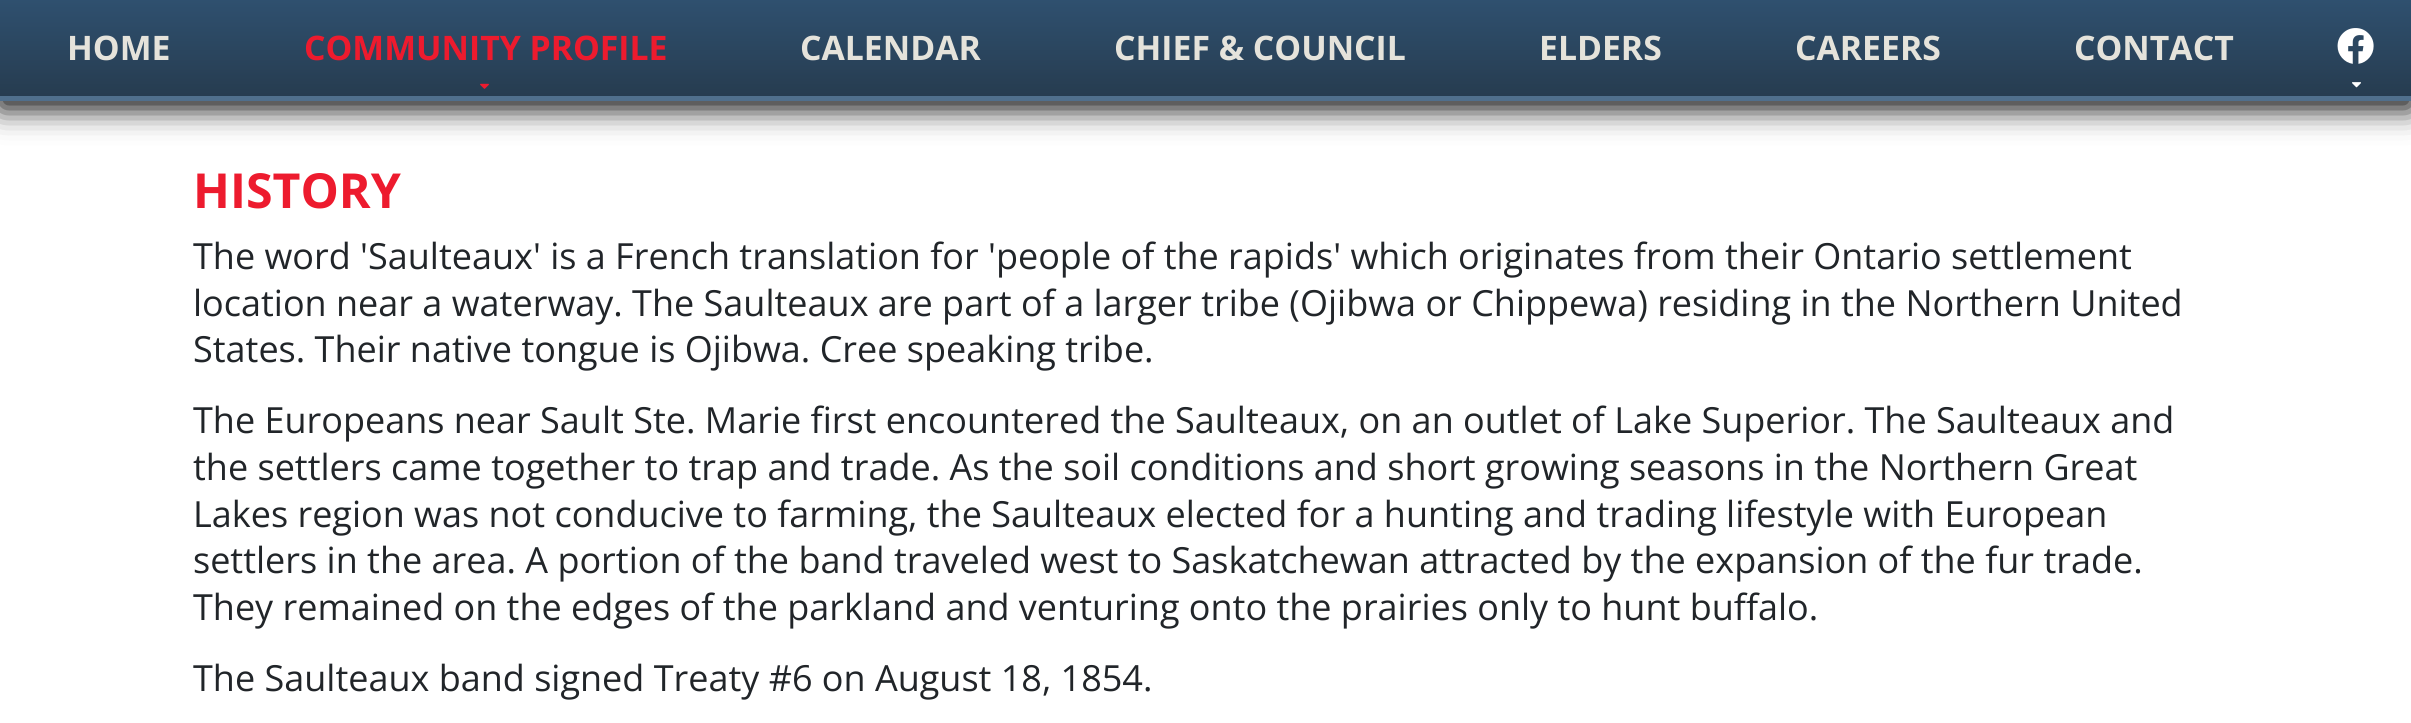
#include <cairo/cairo.h>
#include <math.h>
#include <stddef.h>

static cairo_t *cr;

static void use_color(int r, int g, int b) {
  cairo_set_source_rgb(cr, r / 255.0, g / 255.0, b / 255.0);
}

static void text(double x, double y, const char *s, const char *family, double size, int italic, int bold, int r, int g, int b) {
  cairo_select_font_face(cr, family, italic ? CAIRO_FONT_SLANT_ITALIC : CAIRO_FONT_SLANT_NORMAL,
    bold ? CAIRO_FONT_WEIGHT_BOLD : CAIRO_FONT_WEIGHT_NORMAL);
  cairo_set_font_size(cr, size);
  use_color(r, g, b);
  cairo_move_to(cr, x, y);
  cairo_show_text(cr, s);
}

static void box(double x, double y, double w, double h, int r, int g, int b) {
  use_color(r, g, b);
  cairo_rectangle(cr, x, y, w, h);
  cairo_fill(cr);
}

static void round_rect(double x, double y, double w, double h, double r) {
  cairo_new_sub_path(cr);
  cairo_arc(cr, x + w - r, y + h - r, r, 0, M_PI / 2);
  cairo_arc(cr, x + r, y + h - r, r, M_PI / 2, M_PI);
  cairo_arc(cr, x + r, y + r, r, M_PI, 1.5 * M_PI);
  cairo_arc(cr, x + w - r, y + r, r, 1.5 * M_PI, 2 * M_PI);
  cairo_close_path(cr);
}

static void shadow(double x, double y, double w, double h, double r, double blur, double alpha) {
  cairo_push_group_with_content(cr, CAIRO_CONTENT_ALPHA);
  cairo_set_operator(cr, CAIRO_OPERATOR_SOURCE);
  for (int i = 15; i >= -15 && fmin(w, h) + blur * i / 3 > 0; i -= 2) {
    double e = blur * i / 6;
    cairo_set_source_rgba(cr, 0, 0, 0, alpha * erfc((i - 1) / 8.5) / 2);
    round_rect(x - e, y - e, w + 2 * e, h + 2 * e, fmax(0, fmin(r + e + blur * .6, fmin(w, h) / 2 + e)));
    cairo_fill(cr);
  }
  cairo_pattern_t *soft = cairo_pop_group(cr);
  cairo_mask(cr, soft);
  cairo_pattern_destroy(soft);
}

static void picture(const char *path, double x, double y, double w, double h) {
  cairo_surface_t *image = cairo_image_surface_create_from_png(path);
  cairo_save(cr);
  cairo_set_source_surface(cr, image, x, y);
  cairo_rectangle(cr, x, y, w, h);
  cairo_fill(cr);
  cairo_restore(cr);
  cairo_surface_destroy(image);
}

static void draw(void) {
  cairo_pattern_t *gradient;
  use_color(255, 255, 255);
  cairo_paint(cr);
  use_color(0, 0, 0);
  shadow(0, 8, 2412, 100, 0, 15, 1);
  gradient = cairo_pattern_create_linear(1206, 101, 1206, 0);
  cairo_pattern_add_color_stop_rgba(gradient, 0, 0.149, 0.231, 0.306, 1);
  cairo_pattern_add_color_stop_rgba(gradient, 1, 0.184, 0.314, 0.435, 1);
  cairo_set_source(cr, gradient);
  cairo_pattern_destroy(gradient);
  cairo_rectangle(cr, 0, 0, 2411, 96);
  cairo_fill(cr);
  box(0, 96, 2411, 5, 80, 111, 140);
  picture("img_01.png", 480, 83, 9, 6);
  picture("img_02.png", 2337, 28, 37, 36);
  picture("img_03.png", 2352, 82, 9, 6);
  text(67, 60, "HOME", "Open Sans", 33.75, 0, 1, 229, 227, 219);
  text(304, 60, "COMMUNITY PROFILE", "Open Sans", 33.75, 0, 1, 237, 27, 46);
  text(800, 60, "CALENDAR", "Open Sans", 33.75, 0, 1, 229, 227, 219);
  text(1114, 60, "CHIEF & COUNCIL", "Open Sans", 33.75, 0, 1, 229, 227, 219);
  text(1539, 60, "ELDERS", "Open Sans", 33.75, 0, 1, 229, 227, 219);
  text(1795, 60, "CAREERS", "Open Sans", 33.75, 0, 1, 229, 227, 219);
  text(2074, 60, "CONTACT", "Open Sans", 33.75, 0, 1, 229, 227, 219);
  text(193, 208, "HISTORY", "Open Sans", 48.25, 0, 1, 237, 27, 46);
  text(193, 269, "The word 'Saulteaux' is a French translation for 'people of the rapids' which originates from their Ontario settlement", "Open Sans", 36, 0, 0, 33, 37, 41);
  text(193, 316, "location near a waterway. The Saulteaux are part of a larger tribe (Ojibwa or Chippewa) residing in the Northern United", "Open Sans", 36, 0, 0, 33, 37, 41);
  text(193, 362, "States. Their native tongue is Ojibwa. Cree speaking tribe.", "Open Sans", 36, 0, 0, 33, 37, 41);
  text(193, 433, "The Europeans near Sault Ste. Marie first encountered the Saulteaux, on an outlet of Lake Superior. The Saulteaux and", "Open Sans", 36, 0, 0, 33, 37, 41);
  text(193, 480, "the settlers came together to trap and trade. As the soil conditions and short growing seasons in the Northern Great", "Open Sans", 36, 0, 0, 33, 37, 41);
  text(193, 527, "Lakes region was not conducive to farming, the Saulteaux elected for a hunting and trading lifestyle with European", "Open Sans", 36, 0, 0, 33, 37, 41);
  text(193, 573, "settlers in the area. A portion of the band traveled west to Saskatchewan attracted by the expansion of the fur trade.", "Open Sans", 36, 0, 0, 33, 37, 41);
  text(193, 620, "They remained on the edges of the parkland and venturing onto the prairies only to hunt buffalo.", "Open Sans", 36, 0, 0, 33, 37, 41);
  text(193, 691, "The Saulteaux band signed Treaty #6 on August 18, 1854.", "Open Sans", 36, 0, 0, 33, 37, 41);
}

int main(void) {
  cairo_surface_t *surface = cairo_image_surface_create(CAIRO_FORMAT_RGB24, 2411, 723);
  cr = cairo_create(surface);
  cairo_font_options_t *options = cairo_font_options_create();
  cairo_font_options_set_hint_metrics(options, CAIRO_HINT_METRICS_OFF);
  cairo_font_options_set_hint_style(options, CAIRO_HINT_STYLE_NONE);
  cairo_set_font_options(cr, options);
  cairo_set_miter_limit(cr, 4);
  draw();
  cairo_surface_write_to_png(surface, "out.png");
  cairo_font_options_destroy(options);
  cairo_destroy(cr);
  cairo_surface_destroy(surface);
  return 0;
}
